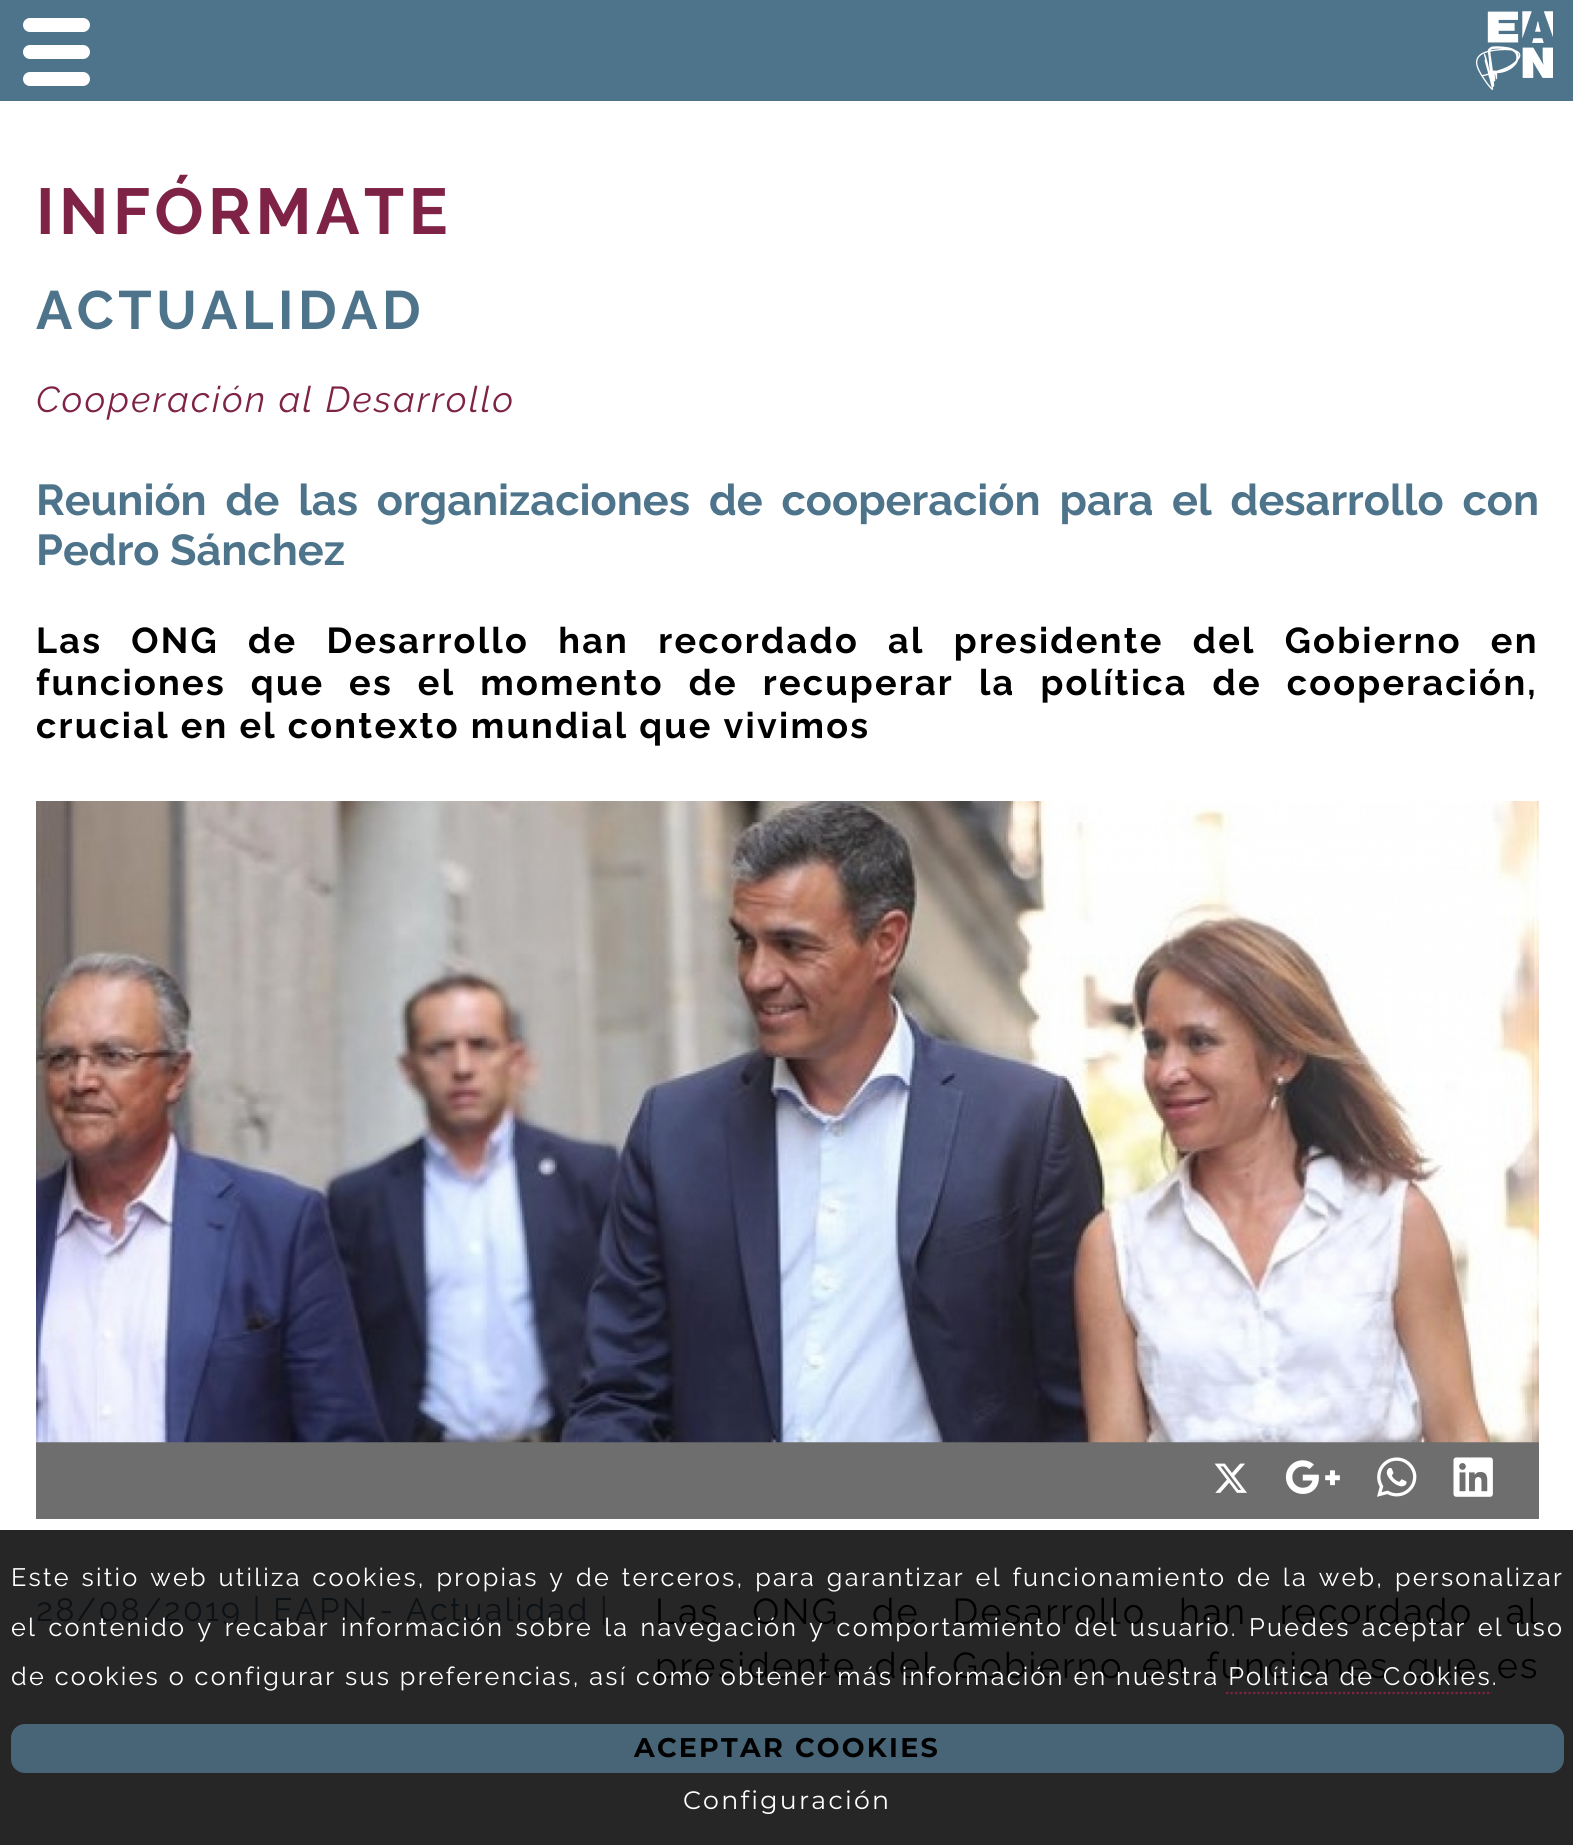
#include <cairo/cairo.h>
#include <math.h>
#include <stddef.h>

static cairo_t *cr;

static void use_color(int r, int g, int b) {
  cairo_set_source_rgb(cr, r / 255.0, g / 255.0, b / 255.0);
}

static void text(double x, double y, const char *s, const char *family, double size, int italic, int bold, int r, int g, int b) {
  cairo_select_font_face(cr, family, italic ? CAIRO_FONT_SLANT_ITALIC : CAIRO_FONT_SLANT_NORMAL,
    bold ? CAIRO_FONT_WEIGHT_BOLD : CAIRO_FONT_WEIGHT_NORMAL);
  cairo_set_font_size(cr, size);
  use_color(r, g, b);
  cairo_move_to(cr, x, y);
  cairo_show_text(cr, s);
}

static void spaced_text(double x, double y, const char *s, double letter, double word) {
  cairo_move_to(cr, x, y);
  while (*s) {
    char ch[5] = {0};
    int n = 0;
    do ch[n++] = *s++; while ((*s & 0xC0) == 0x80);
    cairo_show_text(cr, ch);
    cairo_rel_move_to(cr, letter + word * (*ch == ' '), 0);
  }
}

static void box(double x, double y, double w, double h, int r, int g, int b) {
  use_color(r, g, b);
  cairo_rectangle(cr, x, y, w, h);
  cairo_fill(cr);
}

static void round_rect(double x, double y, double w, double h, double r) {
  cairo_new_sub_path(cr);
  cairo_arc(cr, x + w - r, y + h - r, r, 0, M_PI / 2);
  cairo_arc(cr, x + r, y + h - r, r, M_PI / 2, M_PI);
  cairo_arc(cr, x + r, y + r, r, M_PI, 1.5 * M_PI);
  cairo_arc(cr, x + w - r, y + r, r, 1.5 * M_PI, 2 * M_PI);
  cairo_close_path(cr);
}

static void picture(const char *path, double x, double y, double w, double h) {
  cairo_surface_t *image = cairo_image_surface_create_from_png(path);
  cairo_save(cr);
  cairo_set_source_surface(cr, image, x, y);
  cairo_rectangle(cr, x, y, w, h);
  cairo_fill(cr);
  cairo_restore(cr);
  cairo_surface_destroy(image);
}

static void draw(void) {
  use_color(255, 255, 255);
  cairo_paint(cr);
  box(0, 1530, 1573, 315, 38, 38, 38);
  box(0, 0, 1573, 101, 78, 116, 139);
  use_color(255, 255, 255);
  round_rect(23, 18, 67, 14, 7);
  cairo_fill(cr);
  round_rect(23, 45, 67, 14, 7);
  cairo_fill(cr);
  round_rect(23, 72, 67, 14, 7);
  cairo_fill(cr);
  picture("img_01.png", 1476, 11, 77, 79);
  box(36, 1442, 1503, 77, 110, 110, 110);
  picture("img_02.png", 36, 801, 1503, 642);
  picture("img_03.png", 1214, 1463, 33, 30);
  picture("img_04.png", 1285, 1460, 55, 34);
  picture("img_05.png", 1377, 1457, 40, 40);
  picture("img_06.png", 1453, 1457, 40, 40);
  cairo_new_path(cr);
  cairo_move_to(cr, 1226, 1693);
  cairo_line_to(cr, 1492, 1693);
  use_color(127, 35, 70);
  cairo_set_line_width(cr, 2.2);
  cairo_set_dash(cr, (double[]){2.25, 2.25}, 2, 0);
  cairo_stroke(cr);
  use_color(72, 101, 120);
  round_rect(12, 1725, 1551, 47, 13);
  cairo_fill_preserve(cr);
  cairo_set_line_width(cr, 2);
  cairo_set_dash(cr, NULL, 0, 0);
  cairo_stroke(cr);
  cairo_select_font_face(cr, "Raleway", CAIRO_FONT_SLANT_NORMAL, CAIRO_FONT_WEIGHT_BOLD);
  cairo_set_font_size(cr, 64.75);
  use_color(127, 35, 70);
  spaced_text(36, 234, "INFÓRMATE", 4.5, 0);
  cairo_set_font_size(cr, 54);
  use_color(78, 116, 139);
  spaced_text(36, 329, "ACTUALIDAD", 4.5, 0);
  cairo_select_font_face(cr, "Raleway Thin", CAIRO_FONT_SLANT_ITALIC, CAIRO_FONT_WEIGHT_NORMAL);
  cairo_set_font_size(cr, 36);
  use_color(127, 35, 70);
  spaced_text(36, 412, "Cooperación al Desarrollo", 2.25, 0);
  cairo_select_font_face(cr, "Raleway", CAIRO_FONT_SLANT_NORMAL, CAIRO_FONT_WEIGHT_BOLD);
  cairo_set_font_size(cr, 43.2);
  use_color(78, 116, 139);
  spaced_text(36, 515, "Reunión de las organizaciones de cooperación para el desarrollo con", 0, 8.5);
  text(36, 565, "Pedro Sánchez", "Raleway", 43.2, 0, 1, 78, 116, 139);
  cairo_set_font_size(cr, 36);
  use_color(0, 0, 0);
  spaced_text(36, 653, "Las ONG de Desarrollo han recordado al presidente del Gobierno en", 2.25, 18.25);
  spaced_text(36, 695, "funciones que es el momento de recuperar la política de cooperación,", 2.25, 14);
  spaced_text(36, 738, "crucial en el contexto mundial que vivimos", 2.25, 0);
  cairo_select_font_face(cr, "Raleway", CAIRO_FONT_SLANT_NORMAL, CAIRO_FONT_WEIGHT_NORMAL);
  cairo_set_font_size(cr, 32.4);
  use_color(12, 17, 21);
  spaced_text(36, 1621, "28/08/2019 | EAPN - Actualidad", 2.25, 0);
  spaced_text(600, 1621, "|", 2.25, 0);
  cairo_set_font_size(cr, 36);
  use_color(0, 0, 0);
  spaced_text(655, 1624, "Las ONG de Desarrollo han recordado al", 2.25, 21);
  spaced_text(655, 1678, "presidente del Gobierno en funciones que es", 2.25, 6.5);
  cairo_set_font_size(cr, 25.2);
  use_color(255, 255, 255);
  spaced_text(11, 1586, "Este sitio web utiliza cookies, propias y de terceros, para garantizar el funcionamiento de la web, personalizar", 2.25, 2.1);
  spaced_text(11, 1636, "el contenido y recabar información sobre la navegación y comportamiento del usuario. Puedes aceptar el uso", 2.25, 2.6);
  spaced_text(11, 1685, "de cookies o configurar sus preferencias, así como obtener más información en nuestra Política de Cookies.", 2.25, 0);
  cairo_select_font_face(cr, "Montserrat", CAIRO_FONT_SLANT_NORMAL, CAIRO_FONT_WEIGHT_BOLD);
  cairo_set_font_size(cr, 27);
  use_color(0, 0, 0);
  spaced_text(634, 1757, "ACEPTAR COOKIES", 2.25, 0);
  cairo_select_font_face(cr, "Montserrat", CAIRO_FONT_SLANT_NORMAL, CAIRO_FONT_WEIGHT_NORMAL);
  cairo_set_font_size(cr, 25.2);
  use_color(255, 255, 255);
  spaced_text(683, 1809, "Configuración", 2.25, 0);
}

int main(void) {
  cairo_surface_t *surface = cairo_image_surface_create(CAIRO_FORMAT_RGB24, 1573, 1845);
  cr = cairo_create(surface);
  cairo_font_options_t *options = cairo_font_options_create();
  cairo_font_options_set_hint_metrics(options, CAIRO_HINT_METRICS_OFF);
  cairo_font_options_set_hint_style(options, CAIRO_HINT_STYLE_NONE);
  cairo_set_font_options(cr, options);
  cairo_set_miter_limit(cr, 4);
  draw();
  cairo_surface_write_to_png(surface, "out.png");
  cairo_font_options_destroy(options);
  cairo_destroy(cr);
  cairo_surface_destroy(surface);
  return 0;
}
